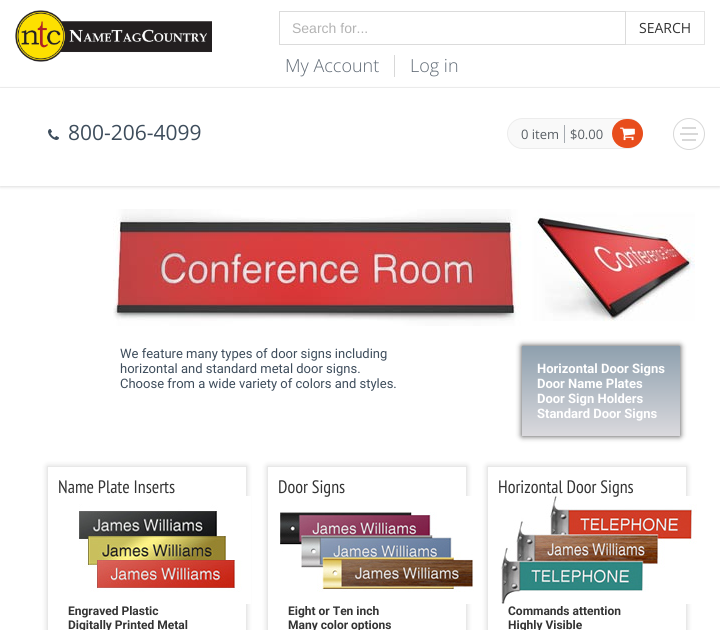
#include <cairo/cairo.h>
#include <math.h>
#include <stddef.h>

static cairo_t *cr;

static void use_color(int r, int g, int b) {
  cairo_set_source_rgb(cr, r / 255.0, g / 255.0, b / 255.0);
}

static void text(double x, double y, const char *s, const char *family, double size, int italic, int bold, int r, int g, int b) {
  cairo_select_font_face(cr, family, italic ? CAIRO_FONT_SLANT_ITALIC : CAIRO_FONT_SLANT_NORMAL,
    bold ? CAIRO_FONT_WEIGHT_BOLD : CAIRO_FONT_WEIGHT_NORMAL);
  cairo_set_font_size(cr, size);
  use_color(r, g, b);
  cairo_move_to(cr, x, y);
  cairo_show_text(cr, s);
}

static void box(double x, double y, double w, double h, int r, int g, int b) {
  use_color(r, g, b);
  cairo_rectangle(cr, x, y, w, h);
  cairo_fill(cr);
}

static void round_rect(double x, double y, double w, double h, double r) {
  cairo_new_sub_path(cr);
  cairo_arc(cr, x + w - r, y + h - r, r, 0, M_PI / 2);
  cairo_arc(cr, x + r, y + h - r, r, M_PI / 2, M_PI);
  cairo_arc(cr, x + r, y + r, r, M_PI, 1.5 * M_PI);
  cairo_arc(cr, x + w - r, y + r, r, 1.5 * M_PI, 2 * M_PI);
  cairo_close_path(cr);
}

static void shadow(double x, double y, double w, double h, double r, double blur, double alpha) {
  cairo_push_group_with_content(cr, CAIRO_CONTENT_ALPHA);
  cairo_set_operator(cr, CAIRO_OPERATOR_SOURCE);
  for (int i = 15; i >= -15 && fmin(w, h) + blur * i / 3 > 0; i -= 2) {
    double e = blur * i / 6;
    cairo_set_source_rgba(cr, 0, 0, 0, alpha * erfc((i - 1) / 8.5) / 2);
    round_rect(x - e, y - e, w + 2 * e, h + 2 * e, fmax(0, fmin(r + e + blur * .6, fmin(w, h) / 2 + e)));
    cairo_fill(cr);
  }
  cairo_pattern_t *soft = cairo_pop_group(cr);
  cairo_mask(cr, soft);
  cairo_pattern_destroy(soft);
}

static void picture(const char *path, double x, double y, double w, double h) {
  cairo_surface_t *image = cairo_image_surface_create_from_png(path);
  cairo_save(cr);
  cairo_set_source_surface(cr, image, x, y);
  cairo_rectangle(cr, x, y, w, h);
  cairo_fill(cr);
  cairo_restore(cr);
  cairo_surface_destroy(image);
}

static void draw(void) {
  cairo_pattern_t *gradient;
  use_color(255, 255, 255);
  cairo_paint(cr);
  box(0, 87, 720, 1, 238, 238, 238);
  picture("img_01.png", 15, 10, 197, 52);
  cairo_rectangle(cr, 625.5, 11.5, 79, 33);
  use_color(229, 229, 229);
  cairo_set_line_width(cr, 1);
  cairo_stroke(cr);
  cairo_rectangle(cr, 279.5, 11.5, 346, 33);
  use_color(219, 219, 219);
  cairo_stroke(cr);
  box(394, 55, 1, 22, 216, 216, 216);
  cairo_save(cr);
  cairo_set_fill_rule(cr, CAIRO_FILL_RULE_EVEN_ODD);
  cairo_new_path(cr);
  cairo_move_to(cr, 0, 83);
  cairo_line_to(cr, 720, 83);
  cairo_line_to(cr, 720, 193);
  cairo_line_to(cr, 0, 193);
  cairo_close_path(cr);
  cairo_move_to(cr, 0, 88);
  cairo_line_to(cr, 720, 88);
  cairo_line_to(cr, 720, 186);
  cairo_line_to(cr, 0, 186);
  cairo_close_path(cr);
  cairo_clip(cr);
  use_color(221, 221, 221);
  shadow(0, 89, 720, 98, 0, 1.5, 1);
  cairo_restore(cr);
  picture("img_02.png", 48, 129, 11, 11);
  use_color(249, 249, 249);
  round_rect(507.5, 118.5, 135, 30, 15);
  cairo_fill_preserve(cr);
  use_color(236, 236, 236);
  cairo_stroke(cr);
  box(564, 125, 1, 18, 165, 170, 176);
  use_color(232, 77, 28);
  round_rect(612, 119, 31, 29, 14.5);
  cairo_fill(cr);
  picture("img_03.png", 620, 127, 15, 14);
  picture("img_04.png", 680, 127, 18, 14);
  cairo_arc(cr, 689, 134, 15.5, 0, 2 * M_PI);
  use_color(216, 216, 216);
  cairo_stroke(cr);
  picture("img_05.png", 113, 209, 582, 117);
  use_color(0, 0, 0);
  shadow(522, 346, 158, 90, 0, 3, 0.75);
  gradient = cairo_pattern_create_linear(601, 346, 601, 436);
  cairo_pattern_add_color_stop_rgba(gradient, 0, 0.557, 0.627, 0.682, 1);
  cairo_pattern_add_color_stop_rgba(gradient, 1, 0.855, 0.851, 0.867, 1);
  cairo_set_source(cr, gradient);
  cairo_pattern_destroy(gradient);
  cairo_rectangle(cr, 522, 346, 158, 90);
  cairo_fill(cr);
  cairo_save(cr);
  cairo_set_fill_rule(cr, CAIRO_FILL_RULE_EVEN_ODD);
  cairo_new_path(cr);
  cairo_move_to(cr, 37, 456);
  cairo_line_to(cr, 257, 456);
  cairo_line_to(cr, 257, 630);
  cairo_line_to(cr, 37, 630);
  cairo_close_path(cr);
  cairo_move_to(cr, 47, 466);
  cairo_line_to(cr, 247, 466);
  cairo_line_to(cr, 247, 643);
  cairo_line_to(cr, 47, 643);
  cairo_close_path(cr);
  cairo_clip(cr);
  use_color(0, 0, 0);
  shadow(47, 466, 200, 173, 0, 3, 0.15);
  cairo_restore(cr);
  cairo_rectangle(cr, 47.5, 466.5, 199, 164);
  use_color(232, 232, 232);
  cairo_stroke(cr);
  picture("img_06.png", 79, 496, 172, 108);
  cairo_save(cr);
  cairo_set_fill_rule(cr, CAIRO_FILL_RULE_EVEN_ODD);
  cairo_new_path(cr);
  cairo_move_to(cr, 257, 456);
  cairo_line_to(cr, 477, 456);
  cairo_line_to(cr, 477, 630);
  cairo_line_to(cr, 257, 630);
  cairo_close_path(cr);
  cairo_move_to(cr, 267, 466);
  cairo_line_to(cr, 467, 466);
  cairo_line_to(cr, 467, 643);
  cairo_line_to(cr, 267, 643);
  cairo_close_path(cr);
  cairo_clip(cr);
  use_color(0, 0, 0);
  shadow(267, 466, 200, 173, 0, 3, 0.15);
  cairo_restore(cr);
  cairo_rectangle(cr, 267.5, 466.5, 199, 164);
  cairo_stroke(cr);
  picture("img_07.png", 280, 496, 194, 108);
  cairo_save(cr);
  cairo_set_fill_rule(cr, CAIRO_FILL_RULE_EVEN_ODD);
  cairo_new_path(cr);
  cairo_move_to(cr, 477, 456);
  cairo_line_to(cr, 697, 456);
  cairo_line_to(cr, 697, 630);
  cairo_line_to(cr, 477, 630);
  cairo_close_path(cr);
  cairo_move_to(cr, 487, 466);
  cairo_line_to(cr, 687, 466);
  cairo_line_to(cr, 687, 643);
  cairo_line_to(cr, 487, 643);
  cairo_close_path(cr);
  cairo_clip(cr);
  use_color(0, 0, 0);
  shadow(487, 466, 200, 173, 0, 3, 0.15);
  cairo_restore(cr);
  cairo_rectangle(cr, 487.5, 466.5, 199, 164);
  cairo_stroke(cr);
  picture("img_08.png", 501, 496, 196, 108);
  text(292, 33, "Search for...", "Liberation Sans", 14, 0, 0, 179, 179, 179);
  text(639, 33, "SEARCH", "Open Sans", 14, 0, 0, 51, 51, 51);
  text(285, 72, "My Account", "Open Sans Light", 18, 0, 0, 97, 107, 118);
  text(410, 72, "Log in", "Open Sans Light", 18, 0, 0, 97, 107, 118);
  text(68, 140, "800-206-4099", "Open Sans", 21, 0, 0, 62, 77, 92);
  text(521, 139, "0 item", "Open Sans", 13, 0, 0, 89, 95, 101);
  text(570, 139, "$0.00", "Open Sans", 13, 0, 0, 89, 95, 101);
  text(120, 358, "We feature many types of door signs including", "Roboto", 13, 0, 0, 62, 77, 92);
  text(120, 373, "horizontal and standard metal door signs.", "Roboto", 13, 0, 0, 62, 77, 92);
  text(120, 388, "Choose from a wide variety of colors and styles.", "Roboto", 13, 0, 0, 62, 77, 92);
  text(537, 373, "Horizontal Door Signs", "Roboto", 13, 0, 1, 255, 255, 255);
  text(537, 388, "Door Name Plates", "Roboto", 13, 0, 1, 255, 255, 255);
  text(537, 403, "Door Sign Holders", "Roboto", 13, 0, 1, 255, 255, 255);
  text(537, 418, "Standard Door Signs", "Roboto", 13, 0, 1, 255, 255, 255);
  text(58, 493, "Name Plate Inserts", "PT Sans Narrow", 18, 0, 0, 51, 51, 51);
  text(68, 615, "Engraved Plastic", "Roboto", 12, 0, 1, 51, 51, 51);
  text(68, 629, "Digitally Printed Metal", "Roboto", 12, 0, 1, 51, 51, 51);
  text(278, 493, "Door Signs", "PT Sans Narrow", 18, 0, 0, 51, 51, 51);
  text(288, 615, "Eight or Ten inch", "Roboto", 12, 0, 1, 51, 51, 51);
  text(288, 629, "Many color options", "Roboto", 12, 0, 1, 51, 51, 51);
  text(498, 493, "Horizontal Door Signs", "PT Sans Narrow", 18, 0, 0, 51, 51, 51);
  text(508, 615, "Commands attention", "Roboto", 12, 0, 1, 51, 51, 51);
  text(508, 629, "Highly Visible", "Roboto", 12, 0, 1, 51, 51, 51);
}

int main(void) {
  cairo_surface_t *surface = cairo_image_surface_create(CAIRO_FORMAT_RGB24, 720, 630);
  cr = cairo_create(surface);
  cairo_font_options_t *options = cairo_font_options_create();
  cairo_font_options_set_hint_metrics(options, CAIRO_HINT_METRICS_OFF);
  cairo_font_options_set_hint_style(options, CAIRO_HINT_STYLE_NONE);
  cairo_set_font_options(cr, options);
  cairo_set_miter_limit(cr, 4);
  draw();
  cairo_surface_write_to_png(surface, "out.png");
  cairo_font_options_destroy(options);
  cairo_destroy(cr);
  cairo_surface_destroy(surface);
  return 0;
}
